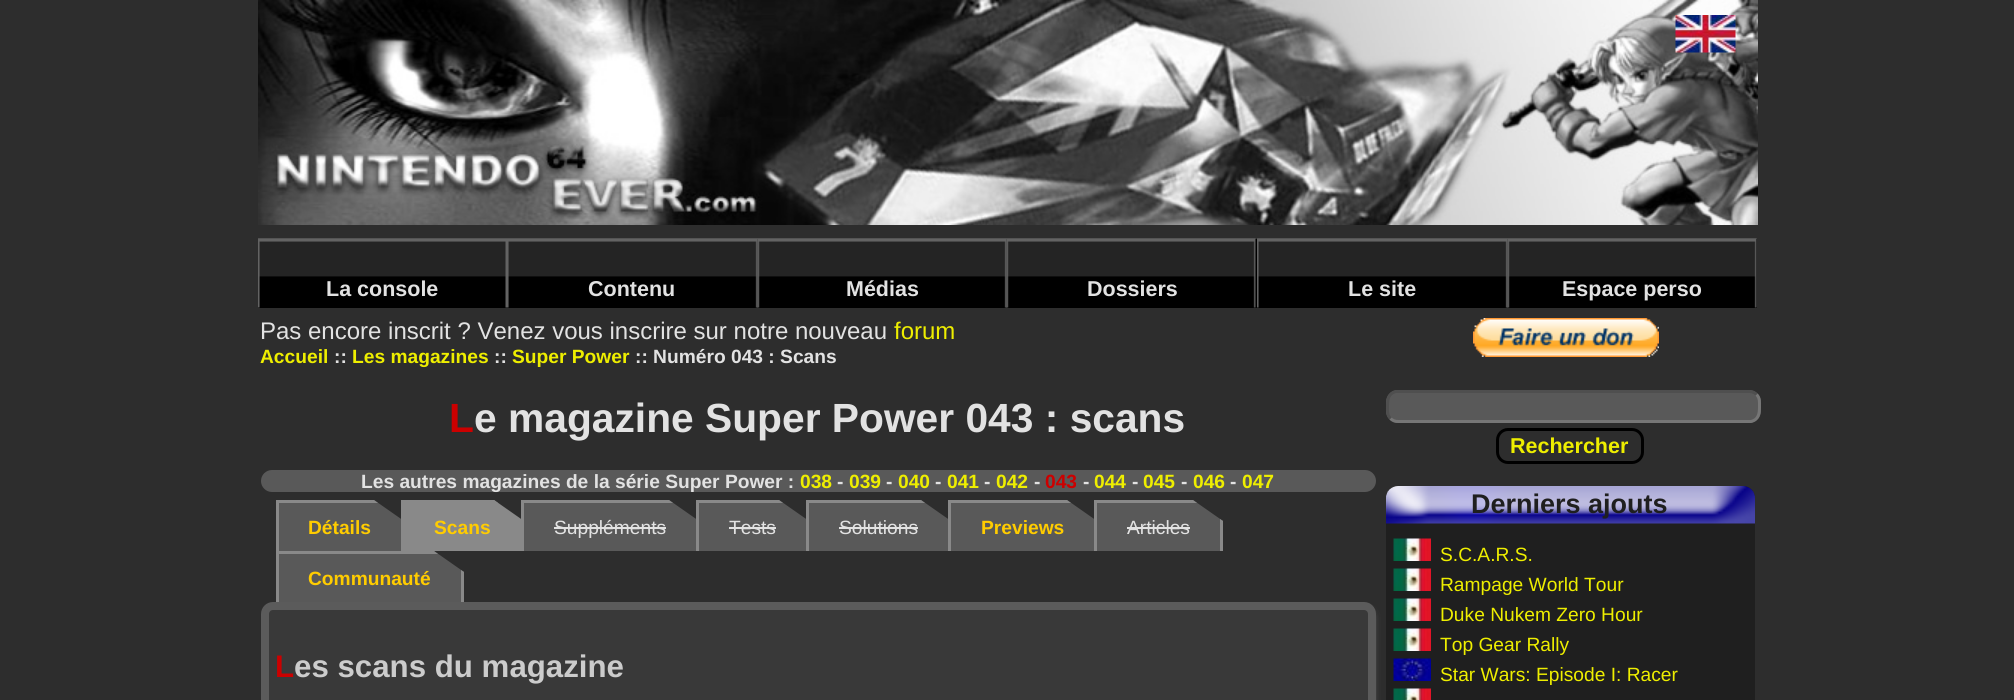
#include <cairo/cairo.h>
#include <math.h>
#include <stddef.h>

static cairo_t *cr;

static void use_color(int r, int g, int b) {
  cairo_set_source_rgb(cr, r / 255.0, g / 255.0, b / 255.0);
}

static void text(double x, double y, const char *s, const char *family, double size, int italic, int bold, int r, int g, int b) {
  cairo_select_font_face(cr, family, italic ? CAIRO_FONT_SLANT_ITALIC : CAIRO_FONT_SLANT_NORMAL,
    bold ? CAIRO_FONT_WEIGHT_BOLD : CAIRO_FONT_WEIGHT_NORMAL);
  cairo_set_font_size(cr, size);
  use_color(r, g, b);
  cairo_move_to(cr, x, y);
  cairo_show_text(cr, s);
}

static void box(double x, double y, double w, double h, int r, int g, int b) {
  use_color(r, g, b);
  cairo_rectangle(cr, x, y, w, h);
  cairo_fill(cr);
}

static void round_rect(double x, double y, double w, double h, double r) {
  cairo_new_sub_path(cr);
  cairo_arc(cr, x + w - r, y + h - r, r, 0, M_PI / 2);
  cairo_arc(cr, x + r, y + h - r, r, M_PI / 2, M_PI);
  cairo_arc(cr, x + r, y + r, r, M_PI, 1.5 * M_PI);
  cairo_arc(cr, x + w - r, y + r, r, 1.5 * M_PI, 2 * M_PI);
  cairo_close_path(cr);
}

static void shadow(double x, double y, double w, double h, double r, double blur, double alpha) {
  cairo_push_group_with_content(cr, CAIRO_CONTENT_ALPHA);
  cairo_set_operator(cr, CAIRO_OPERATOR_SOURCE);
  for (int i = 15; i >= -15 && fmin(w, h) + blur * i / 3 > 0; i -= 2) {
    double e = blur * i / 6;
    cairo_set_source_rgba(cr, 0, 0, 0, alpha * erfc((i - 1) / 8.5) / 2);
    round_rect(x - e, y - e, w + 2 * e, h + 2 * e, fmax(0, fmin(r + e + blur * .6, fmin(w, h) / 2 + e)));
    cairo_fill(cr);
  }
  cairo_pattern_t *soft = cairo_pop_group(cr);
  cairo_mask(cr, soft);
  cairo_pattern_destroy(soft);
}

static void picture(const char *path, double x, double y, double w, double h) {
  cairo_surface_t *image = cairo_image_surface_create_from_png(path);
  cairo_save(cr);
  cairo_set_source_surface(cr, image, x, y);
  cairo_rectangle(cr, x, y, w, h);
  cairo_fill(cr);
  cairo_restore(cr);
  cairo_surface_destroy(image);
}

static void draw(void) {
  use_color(45, 45, 45);
  cairo_paint(cr);
  picture("img_02.png", 258, 0, 1500, 225);
  picture("img_01.png", 1675, 15, 61, 38);
  picture("img_03.png", 258, 238, 249, 1);
  box(258, 307, 249, 1, 0, 0, 0);
  picture("img_04.png", 258, 238, 249, 70);
  picture("img_05.png", 507, 238, 251, 1);
  box(507, 239, 251, 69, 0, 0, 0);
  picture("img_06.png", 507, 238, 251, 70);
  picture("img_07.png", 757, 238, 250, 70);
  box(758, 239, 249, 69, 0, 0, 0);
  picture("img_08.png", 757, 238, 250, 70);
  picture("img_07.png", 1006, 238, 250, 70);
  box(1007, 239, 501, 69, 0, 0, 0);
  picture("img_08.png", 1006, 238, 250, 70);
  picture("img_05.png", 1257, 238, 251, 1);
  picture("img_06.png", 1257, 238, 251, 70);
  picture("img_07.png", 1507, 238, 250, 70);
  box(1508, 239, 249, 69, 0, 0, 0);
  picture("img_08.png", 1507, 238, 250, 70);
  use_color(89, 89, 89);
  round_rect(261, 470, 1115, 22, 11);
  cairo_fill(cr);
  cairo_new_path(cr);
  cairo_move_to(cr, 404, 521);
  cairo_line_to(cr, 404, 551);
  cairo_line_to(cr, 276, 551);
  cairo_line_to(cr, 276, 500);
  cairo_line_to(cr, 374, 500);
  cairo_close_path(cr);
  cairo_fill(cr);
  use_color(137, 137, 137);
  cairo_new_path(cr);
  cairo_move_to(cr, 378, 503);
  cairo_line_to(cr, 276, 503);
  cairo_line_to(cr, 276, 500);
  cairo_line_to(cr, 374, 500);
  cairo_close_path(cr);
  cairo_fill(cr);
  box(276, 500, 3, 51, 137, 137, 137);
  cairo_new_path(cr);
  cairo_move_to(cr, 401, 500);
  cairo_line_to(cr, 494, 500);
  cairo_line_to(cr, 524, 521);
  cairo_line_to(cr, 524, 551);
  cairo_line_to(cr, 401, 551);
  cairo_close_path(cr);
  cairo_fill(cr);
  cairo_new_path(cr);
  cairo_move_to(cr, 401, 500);
  cairo_line_to(cr, 494, 500);
  cairo_line_to(cr, 498, 503);
  cairo_line_to(cr, 401, 503);
  cairo_close_path(cr);
  cairo_fill(cr);
  use_color(89, 89, 89);
  cairo_new_path(cr);
  cairo_move_to(cr, 699, 551);
  cairo_line_to(cr, 521, 551);
  cairo_line_to(cr, 521, 500);
  cairo_line_to(cr, 669, 500);
  cairo_line_to(cr, 699, 521);
  cairo_close_path(cr);
  cairo_fill(cr);
  use_color(137, 137, 137);
  cairo_new_path(cr);
  cairo_move_to(cr, 673, 503);
  cairo_line_to(cr, 521, 503);
  cairo_line_to(cr, 521, 500);
  cairo_line_to(cr, 669, 500);
  cairo_close_path(cr);
  cairo_fill(cr);
  box(521, 500, 3, 51, 137, 137, 137);
  box(554, 527, 112, 2, 226, 226, 226);
  use_color(89, 89, 89);
  cairo_new_path(cr);
  cairo_move_to(cr, 809, 551);
  cairo_line_to(cr, 696, 551);
  cairo_line_to(cr, 696, 500);
  cairo_line_to(cr, 779, 500);
  cairo_line_to(cr, 809, 521);
  cairo_close_path(cr);
  cairo_fill(cr);
  use_color(137, 137, 137);
  cairo_new_path(cr);
  cairo_move_to(cr, 783, 503);
  cairo_line_to(cr, 696, 503);
  cairo_line_to(cr, 696, 500);
  cairo_line_to(cr, 779, 500);
  cairo_close_path(cr);
  cairo_fill(cr);
  box(696, 500, 3, 51, 137, 137, 137);
  box(729, 527, 47, 2, 226, 226, 226);
  use_color(89, 89, 89);
  cairo_new_path(cr);
  cairo_move_to(cr, 951, 551);
  cairo_line_to(cr, 806, 551);
  cairo_line_to(cr, 806, 500);
  cairo_line_to(cr, 921, 500);
  cairo_line_to(cr, 951, 521);
  cairo_close_path(cr);
  cairo_fill(cr);
  use_color(137, 137, 137);
  cairo_new_path(cr);
  cairo_move_to(cr, 925, 503);
  cairo_line_to(cr, 806, 503);
  cairo_line_to(cr, 806, 500);
  cairo_line_to(cr, 921, 500);
  cairo_close_path(cr);
  cairo_fill(cr);
  box(806, 500, 3, 51, 137, 137, 137);
  box(839, 527, 79, 2, 226, 226, 226);
  use_color(89, 89, 89);
  cairo_new_path(cr);
  cairo_move_to(cr, 1097, 521);
  cairo_line_to(cr, 1097, 551);
  cairo_line_to(cr, 948, 551);
  cairo_line_to(cr, 948, 500);
  cairo_line_to(cr, 1067, 500);
  cairo_close_path(cr);
  cairo_fill(cr);
  use_color(137, 137, 137);
  cairo_new_path(cr);
  cairo_move_to(cr, 1071, 503);
  cairo_line_to(cr, 948, 503);
  cairo_line_to(cr, 948, 500);
  cairo_line_to(cr, 1067, 500);
  cairo_close_path(cr);
  cairo_fill(cr);
  box(948, 500, 3, 51, 137, 137, 137);
  use_color(89, 89, 89);
  cairo_new_path(cr);
  cairo_move_to(cr, 1094, 500);
  cairo_line_to(cr, 1193, 500);
  cairo_line_to(cr, 1223, 521);
  cairo_line_to(cr, 1223, 551);
  cairo_line_to(cr, 1094, 551);
  cairo_close_path(cr);
  cairo_fill(cr);
  use_color(137, 137, 137);
  cairo_new_path(cr);
  cairo_move_to(cr, 1094, 500);
  cairo_line_to(cr, 1193, 500);
  cairo_line_to(cr, 1197, 503);
  cairo_line_to(cr, 1094, 503);
  cairo_close_path(cr);
  cairo_fill(cr);
  cairo_new_path(cr);
  cairo_move_to(cr, 1223, 551);
  cairo_line_to(cr, 1220, 551);
  cairo_line_to(cr, 1220, 519);
  cairo_line_to(cr, 1223, 521);
  cairo_close_path(cr);
  cairo_fill(cr);
  box(1094, 500, 3, 51, 137, 137, 137);
  box(1127, 527, 63, 2, 226, 226, 226);
  use_color(89, 89, 89);
  cairo_new_path(cr);
  cairo_move_to(cr, 464, 602);
  cairo_line_to(cr, 276, 602);
  cairo_line_to(cr, 276, 551);
  cairo_line_to(cr, 434, 551);
  cairo_line_to(cr, 464, 572);
  cairo_close_path(cr);
  cairo_fill(cr);
  use_color(137, 137, 137);
  cairo_new_path(cr);
  cairo_move_to(cr, 438, 554);
  cairo_line_to(cr, 276, 554);
  cairo_line_to(cr, 276, 551);
  cairo_line_to(cr, 434, 551);
  cairo_close_path(cr);
  cairo_fill(cr);
  cairo_new_path(cr);
  cairo_move_to(cr, 464, 602);
  cairo_line_to(cr, 461, 602);
  cairo_line_to(cr, 461, 570);
  cairo_line_to(cr, 464, 572);
  cairo_close_path(cr);
  cairo_fill(cr);
  box(276, 551, 3, 51, 137, 137, 137);
  use_color(201, 201, 201);
  shadow(272, 612, 1099, 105, 5, 4, 1);
  use_color(57, 57, 57);
  round_rect(265, 606, 1107, 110, 8);
  cairo_fill_preserve(cr);
  use_color(91, 91, 91);
  cairo_set_line_width(cr, 8);
  cairo_stroke(cr);
  picture("img_09.png", 1473, 318, 186, 39);
  use_color(89, 89, 89);
  round_rect(1386, 390, 375, 33, 12);
  cairo_fill(cr);
  cairo_new_path(cr);
  cairo_move_to(cr, 1756.5, 394.5);
  cairo_curve_to(cr, 1760, 398, 1759.5, 402, 1759.5, 406.5);
  cairo_curve_to(cr, 1759.5, 413, 1759, 419.5, 1751, 421.5);
  cairo_line_to(cr, 1398, 421.5);
  cairo_curve_to(cr, 1395, 421.5, 1392.5, 420.5, 1390.5, 418.5);
  use_color(118, 118, 118);
  cairo_set_line_width(cr, 3);
  cairo_stroke(cr);
  cairo_new_path(cr);
  cairo_move_to(cr, 1390.5, 418.5);
  cairo_curve_to(cr, 1387, 415, 1387.5, 411, 1387.5, 406.5);
  cairo_curve_to(cr, 1387.5, 400, 1388, 393.5, 1396, 391.5);
  cairo_line_to(cr, 1749, 391.5);
  cairo_curve_to(cr, 1752, 391.5, 1754.5, 392.5, 1756.5, 394.5);
  use_color(79, 79, 79);
  cairo_stroke(cr);
  round_rect(1497.5, 429.5, 145, 33, 10.5);
  use_color(0, 0, 0);
  cairo_stroke(cr);
  use_color(31, 31, 31);
  round_rect(1386, 486, 369, 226, 12);
  cairo_fill(cr);
  picture("img_10.png", 1386, 486, 369, 38);
  picture("img_11.png", 1393, 538, 38, 23);
  picture("img_11.png", 1393, 568, 38, 23);
  picture("img_11.png", 1393, 598, 38, 23);
  picture("img_11.png", 1393, 628, 38, 23);
  picture("img_12.png", 1393, 658, 38, 23);
  picture("img_13.png", 1393, 688, 38, 12);
  text(326, 296, "La console", "Liberation Sans", 21.5, 0, 1, 226, 226, 226);
  text(588, 296, "Contenu", "Liberation Sans", 21.5, 0, 1, 226, 226, 226);
  text(846, 296, "Médias", "Liberation Sans", 21.5, 0, 1, 226, 226, 226);
  text(1087, 296, "Dossiers", "Liberation Sans", 21.5, 0, 1, 226, 226, 226);
  text(1348, 296, "Le site", "Liberation Sans", 21.5, 0, 1, 226, 226, 226);
  text(1562, 296, "Espace perso", "Liberation Sans", 21.5, 0, 1, 226, 226, 226);
  text(260, 339, "Pas encore inscrit ? Venez vous inscrire sur notre nouveau", "Liberation Sans", 24, 0, 0, 226, 226, 226);
  text(894, 339, "forum", "Liberation Sans", 24, 0, 0, 238, 238, 0);
  text(260, 363, "Accueil", "Liberation Sans", 19.2, 0, 1, 238, 238, 0);
  text(334, 363, "::", "Liberation Sans", 19.2, 0, 1, 226, 226, 226);
  text(352, 363, "Les magazines", "Liberation Sans", 19.2, 0, 1, 238, 238, 0);
  text(494, 363, "::", "Liberation Sans", 19.2, 0, 1, 226, 226, 226);
  text(512, 363, "Super Power", "Liberation Sans", 19.2, 0, 1, 238, 238, 0);
  text(635, 363, ":: Numéro 043 : Scans", "Liberation Sans", 19.2, 0, 1, 226, 226, 226);
  text(449, 432, "L", "Liberation Sans", 40.75, 0, 1, 204, 0, 0);
  text(474, 432, "e magazine Super Power 043 : scans", "Liberation Sans", 40.75, 0, 1, 226, 226, 226);
  text(361, 488, "Les autres magazines de la série Super Power :", "Liberation Sans", 19.2, 0, 1, 226, 226, 226);
  text(800, 488, "038", "Liberation Sans", 19.2, 0, 1, 238, 238, 0);
  text(837, 488, "-", "Liberation Sans", 19.2, 0, 1, 226, 226, 226);
  text(849, 488, "039", "Liberation Sans", 19.2, 0, 1, 238, 238, 0);
  text(886, 488, "-", "Liberation Sans", 19.2, 0, 1, 226, 226, 226);
  text(898, 488, "040", "Liberation Sans", 19.2, 0, 1, 238, 238, 0);
  text(935, 488, "-", "Liberation Sans", 19.2, 0, 1, 226, 226, 226);
  text(947, 488, "041", "Liberation Sans", 19.2, 0, 1, 238, 238, 0);
  text(984, 488, "-", "Liberation Sans", 19.2, 0, 1, 226, 226, 226);
  text(996, 488, "042", "Liberation Sans", 19.2, 0, 1, 238, 238, 0);
  text(1034, 488, "-", "Liberation Sans", 19.2, 0, 1, 226, 226, 226);
  text(1045, 488, "043", "Liberation Sans", 19.2, 0, 1, 204, 0, 0);
  text(1083, 488, "-", "Liberation Sans", 19.2, 0, 1, 226, 226, 226);
  text(1094, 488, "044", "Liberation Sans", 19.2, 0, 1, 238, 238, 0);
  text(1132, 488, "-", "Liberation Sans", 19.2, 0, 1, 226, 226, 226);
  text(1143, 488, "045", "Liberation Sans", 19.2, 0, 1, 238, 238, 0);
  text(1181, 488, "-", "Liberation Sans", 19.2, 0, 1, 226, 226, 226);
  text(1193, 488, "046", "Liberation Sans", 19.2, 0, 1, 238, 238, 0);
  text(1230, 488, "-", "Liberation Sans", 19.2, 0, 1, 226, 226, 226);
  text(1242, 488, "047", "Liberation Sans", 19.2, 0, 1, 238, 238, 0);
  text(308, 534, "Détails", "Liberation Sans", 19.2, 0, 1, 255, 204, 0);
  text(434, 534, "Scans", "Liberation Sans", 19.2, 0, 1, 255, 204, 0);
  text(554, 534, "Suppléments", "Liberation Sans", 19.2, 0, 0, 226, 226, 226);
  text(729, 534, "Tests", "Liberation Sans", 19.2, 0, 0, 226, 226, 226);
  text(839, 534, "Solutions", "Liberation Sans", 19.2, 0, 0, 226, 226, 226);
  text(981, 534, "Previews", "Liberation Sans", 19.2, 0, 1, 255, 204, 0);
  text(1127, 534, "Articles", "Liberation Sans", 19.2, 0, 0, 226, 226, 226);
  text(308, 585, "Communauté", "Liberation Sans", 19.2, 0, 1, 255, 204, 0);
  text(275, 677, "L", "Liberation Sans", 31.25, 0, 1, 204, 0, 0);
  text(294, 677, "es scans du magazine", "Liberation Sans", 31.25, 0, 1, 204, 204, 204);
  text(1510, 453, "Rechercher", "Liberation Sans", 21.5, 0, 1, 238, 238, 0);
  text(1471, 513, "Derniers ajouts", "Liberation Sans", 27, 0, 1, 31, 31, 31);
  text(1440, 561, "S.C.A.R.S.", "Liberation Sans", 19.2, 0, 0, 238, 238, 0);
  text(1440, 591, "Rampage World Tour", "Liberation Sans", 19.2, 0, 0, 238, 238, 0);
  text(1440, 621, "Duke Nukem Zero Hour", "Liberation Sans", 19.2, 0, 0, 238, 238, 0);
  text(1440, 651, "Top Gear Rally", "Liberation Sans", 19.2, 0, 0, 238, 238, 0);
  text(1440, 681, "Star Wars: Episode I: Racer", "Liberation Sans", 19.2, 0, 0, 238, 238, 0);
}

int main(void) {
  cairo_surface_t *surface = cairo_image_surface_create(CAIRO_FORMAT_RGB24, 2014, 700);
  cr = cairo_create(surface);
  cairo_font_options_t *options = cairo_font_options_create();
  cairo_font_options_set_hint_metrics(options, CAIRO_HINT_METRICS_OFF);
  cairo_font_options_set_hint_style(options, CAIRO_HINT_STYLE_NONE);
  cairo_set_font_options(cr, options);
  cairo_set_miter_limit(cr, 4);
  draw();
  cairo_surface_write_to_png(surface, "out.png");
  cairo_font_options_destroy(options);
  cairo_destroy(cr);
  cairo_surface_destroy(surface);
  return 0;
}
